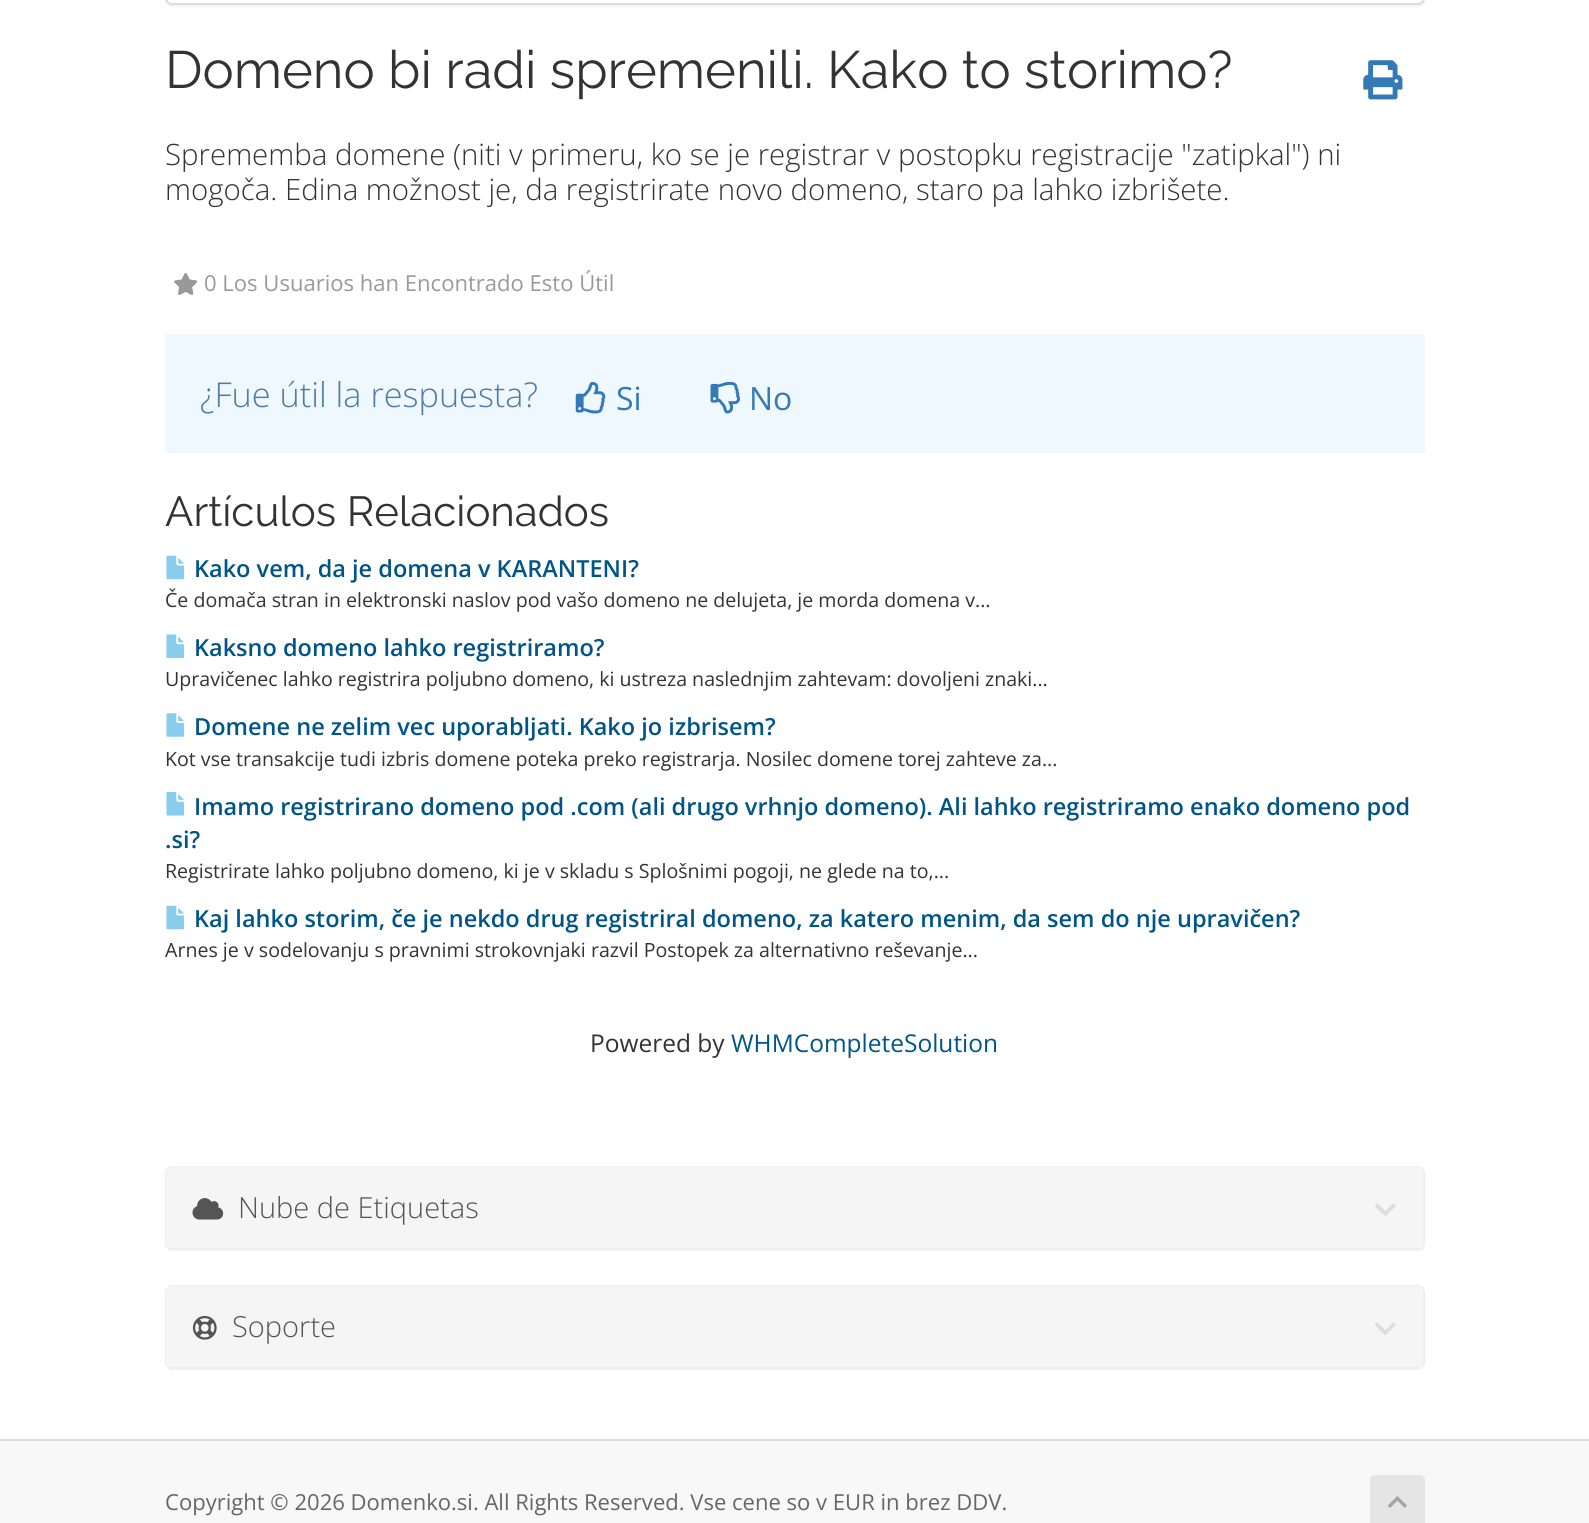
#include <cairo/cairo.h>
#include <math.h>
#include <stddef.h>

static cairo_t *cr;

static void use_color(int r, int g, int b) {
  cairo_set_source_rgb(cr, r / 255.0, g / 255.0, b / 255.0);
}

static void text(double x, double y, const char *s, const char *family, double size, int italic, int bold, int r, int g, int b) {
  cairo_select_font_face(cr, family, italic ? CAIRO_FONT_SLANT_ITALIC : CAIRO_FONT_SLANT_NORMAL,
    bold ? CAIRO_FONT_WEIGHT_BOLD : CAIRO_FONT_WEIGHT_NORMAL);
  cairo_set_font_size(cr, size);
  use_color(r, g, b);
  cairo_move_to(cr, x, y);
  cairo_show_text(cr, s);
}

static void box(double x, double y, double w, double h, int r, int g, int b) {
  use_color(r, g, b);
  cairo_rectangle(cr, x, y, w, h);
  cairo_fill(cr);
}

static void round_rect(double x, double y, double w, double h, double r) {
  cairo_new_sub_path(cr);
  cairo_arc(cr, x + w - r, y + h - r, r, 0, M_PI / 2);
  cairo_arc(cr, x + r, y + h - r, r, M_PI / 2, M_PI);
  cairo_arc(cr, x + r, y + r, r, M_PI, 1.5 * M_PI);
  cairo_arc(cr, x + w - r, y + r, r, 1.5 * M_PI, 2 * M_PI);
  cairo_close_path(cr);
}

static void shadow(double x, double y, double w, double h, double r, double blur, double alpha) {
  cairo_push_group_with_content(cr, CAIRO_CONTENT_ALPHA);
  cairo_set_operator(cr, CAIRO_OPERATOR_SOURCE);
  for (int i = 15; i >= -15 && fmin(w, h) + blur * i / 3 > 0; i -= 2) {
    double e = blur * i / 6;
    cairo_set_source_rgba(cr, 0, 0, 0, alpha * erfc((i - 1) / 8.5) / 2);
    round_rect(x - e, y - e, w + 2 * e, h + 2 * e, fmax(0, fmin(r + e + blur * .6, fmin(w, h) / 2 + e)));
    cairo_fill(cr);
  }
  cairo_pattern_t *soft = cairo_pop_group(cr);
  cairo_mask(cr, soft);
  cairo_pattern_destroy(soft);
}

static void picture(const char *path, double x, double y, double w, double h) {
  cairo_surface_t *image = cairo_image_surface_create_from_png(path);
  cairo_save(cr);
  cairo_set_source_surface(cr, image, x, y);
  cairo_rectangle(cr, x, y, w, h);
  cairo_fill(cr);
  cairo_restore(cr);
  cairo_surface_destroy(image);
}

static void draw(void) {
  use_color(248, 248, 248);
  cairo_paint(cr);
  box(0, 0, 1589, 1439, 255, 255, 255);
  use_color(0, 0, 0);
  shadow(165, -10, 1260, 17, 7, 1, 0.05);
  use_color(255, 255, 255);
  round_rect(166, -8, 1258, 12, 6);
  cairo_fill_preserve(cr);
  use_color(221, 221, 221);
  cairo_stroke(cr);
  picture("img_01.png", 1363, 60, 40, 40);
  picture("img_02.png", 174, 273, 24, 22);
  box(165, 334, 1260, 119, 239, 247, 255);
  picture("img_03.png", 575, 381, 31, 33);
  picture("img_04.png", 710, 381, 30, 33);
  picture("img_05.png", 166, 555, 19, 25);
  picture("img_06.png", 166, 634, 19, 24);
  picture("img_07.png", 166, 713, 19, 24);
  picture("img_08.png", 166, 792, 19, 24);
  picture("img_05.png", 166, 905, 19, 25);
  use_color(0, 0, 0);
  shadow(165, 1167, 1260, 84, 7, 1, 0.05);
  round_rect(166, 1167, 1258, 82, 6);
  use_color(238, 238, 238);
  cairo_stroke(cr);
  use_color(245, 245, 245);
  cairo_new_path(cr);
  cairo_move_to(cr, 171, 1167);
  cairo_line_to(cr, 1418, 1167);
  cairo_curve_to(cr, 1421, 1167, 1423, 1169, 1423, 1172);
  cairo_line_to(cr, 1423, 1248);
  cairo_line_to(cr, 166, 1248);
  cairo_line_to(cr, 166, 1172);
  cairo_curve_to(cr, 166, 1169, 168, 1167, 171, 1167);
  cairo_close_path(cr);
  cairo_fill(cr);
  picture("img_09.png", 192, 1198, 32, 22);
  picture("img_10.png", 1375, 1203, 21, 13);
  use_color(0, 0, 0);
  shadow(165, 1286, 1260, 84, 7, 1, 0.05);
  round_rect(166, 1286, 1258, 82, 6);
  use_color(238, 238, 238);
  cairo_stroke(cr);
  use_color(245, 245, 245);
  cairo_new_path(cr);
  cairo_move_to(cr, 171, 1286);
  cairo_line_to(cr, 1418, 1286);
  cairo_curve_to(cr, 1421, 1286, 1423, 1288, 1423, 1291);
  cairo_line_to(cr, 1423, 1367);
  cairo_line_to(cr, 166, 1367);
  cairo_line_to(cr, 166, 1291);
  cairo_curve_to(cr, 166, 1288, 168, 1286, 171, 1286);
  cairo_close_path(cr);
  cairo_fill(cr);
  picture("img_11.png", 192, 1315, 25, 25);
  picture("img_10.png", 1375, 1322, 21, 13);
  box(0, 1439, 1589, 2, 221, 221, 221);
  use_color(229, 229, 229);
  round_rect(1370, 1475, 55, 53, 5);
  cairo_fill(cr);
  picture("img_12.png", 1388, 1496, 19, 12);
  text(165, 88, "Domeno bi radi spremenili. Kako to storimo?", "Raleway", 52.5, 0, 0, 51, 51, 51);
  text(165, 165, "Sprememba domene (niti v primeru, ko se je registrar v postopku registracije \"zatipkal\") ni", "Open Sans Light", 29.4, 0, 0, 51, 51, 51);
  text(165, 200, "mogoča. Edina možnost je, da registrirate novo domeno, staro pa lahko izbrišete.", "Open Sans Light", 29.4, 0, 0, 51, 51, 51);
  text(204, 291, "0 Los Usuarios han Encontrado Esto Útil", "Open Sans", 22.05, 0, 0, 153, 153, 153);
  text(200, 407, "¿Fue útil la respuesta?", "Open Sans Light", 34.25, 0, 0, 77, 124, 171);
  text(616, 410, "Si", "Open Sans", 32, 0, 0, 51, 122, 183);
  text(749, 410, "No", "Open Sans", 32, 0, 0, 51, 122, 183);
  text(165, 526, "Artículos Relacionados", "Raleway", 42, 0, 0, 51, 51, 51);
  text(194, 577, "Kako vem, da je domena v KARANTENI?", "Open Sans SemiBold", 23.52, 0, 0, 0, 85, 136);
  text(165, 607, "Če domača stran in elektronski naslov pod vašo domeno ne delujeta, je morda domena v...", "Open Sans", 19.6, 0, 0, 51, 51, 51);
  text(194, 656, "Kaksno domeno lahko registriramo?", "Open Sans SemiBold", 23.52, 0, 0, 0, 85, 136);
  text(165, 686, "Upravičenec lahko registrira poljubno domeno, ki ustreza naslednjim zahtevam: dovoljeni znaki...", "Open Sans", 19.6, 0, 0, 51, 51, 51);
  text(194, 735, "Domene ne zelim vec uporabljati. Kako jo izbrisem?", "Open Sans SemiBold", 23.52, 0, 0, 0, 85, 136);
  text(165, 766, "Kot vse transakcije tudi izbris domene poteka preko registrarja. Nosilec domene torej zahteve za...", "Open Sans", 19.6, 0, 0, 51, 51, 51);
  text(194, 815, "Imamo registrirano domeno pod .com (ali drugo vrhnjo domeno). Ali lahko registriramo enako domeno pod", "Open Sans SemiBold", 23.52, 0, 0, 0, 85, 136);
  text(165, 848, ".si?", "Open Sans SemiBold", 23.52, 0, 0, 0, 85, 136);
  text(165, 878, "Registrirate lahko poljubno domeno, ki je v skladu s Splošnimi pogoji, ne glede na to,...", "Open Sans", 19.6, 0, 0, 51, 51, 51);
  text(194, 927, "Kaj lahko storim, če je nekdo drug registriral domeno, za katero menim, da sem do nje upravičen?", "Open Sans SemiBold", 23.52, 0, 0, 0, 85, 136);
  text(165, 957, "Arnes je v sodelovanju s pravnimi strokovnjaki razvil Postopek za alternativno reševanje...", "Open Sans", 19.6, 0, 0, 51, 51, 51);
  text(590, 1052, "Powered by", "Open Sans", 24.5, 0, 0, 51, 51, 51);
  text(731, 1052, "WHMCompleteSolution", "Open Sans", 24.5, 0, 0, 0, 85, 136);
  text(238, 1218, "Nube de Etiquetas", "Open Sans Light", 29, 0, 0, 85, 85, 85);
  text(232, 1337, "Soporte", "Open Sans Light", 29, 0, 0, 85, 85, 85);
  text(165, 1510, "Copyright © 2026 Domenko.si. All Rights Reserved. Vse cene so v EUR in brez DDV.", "Open Sans", 22.05, 0, 0, 102, 102, 102);
}

int main(void) {
  cairo_surface_t *surface = cairo_image_surface_create(CAIRO_FORMAT_RGB24, 1589, 1523);
  cr = cairo_create(surface);
  cairo_font_options_t *options = cairo_font_options_create();
  cairo_font_options_set_hint_metrics(options, CAIRO_HINT_METRICS_OFF);
  cairo_font_options_set_hint_style(options, CAIRO_HINT_STYLE_NONE);
  cairo_set_font_options(cr, options);
  cairo_set_miter_limit(cr, 4);
  draw();
  cairo_surface_write_to_png(surface, "out.png");
  cairo_font_options_destroy(options);
  cairo_destroy(cr);
  cairo_surface_destroy(surface);
  return 0;
}
